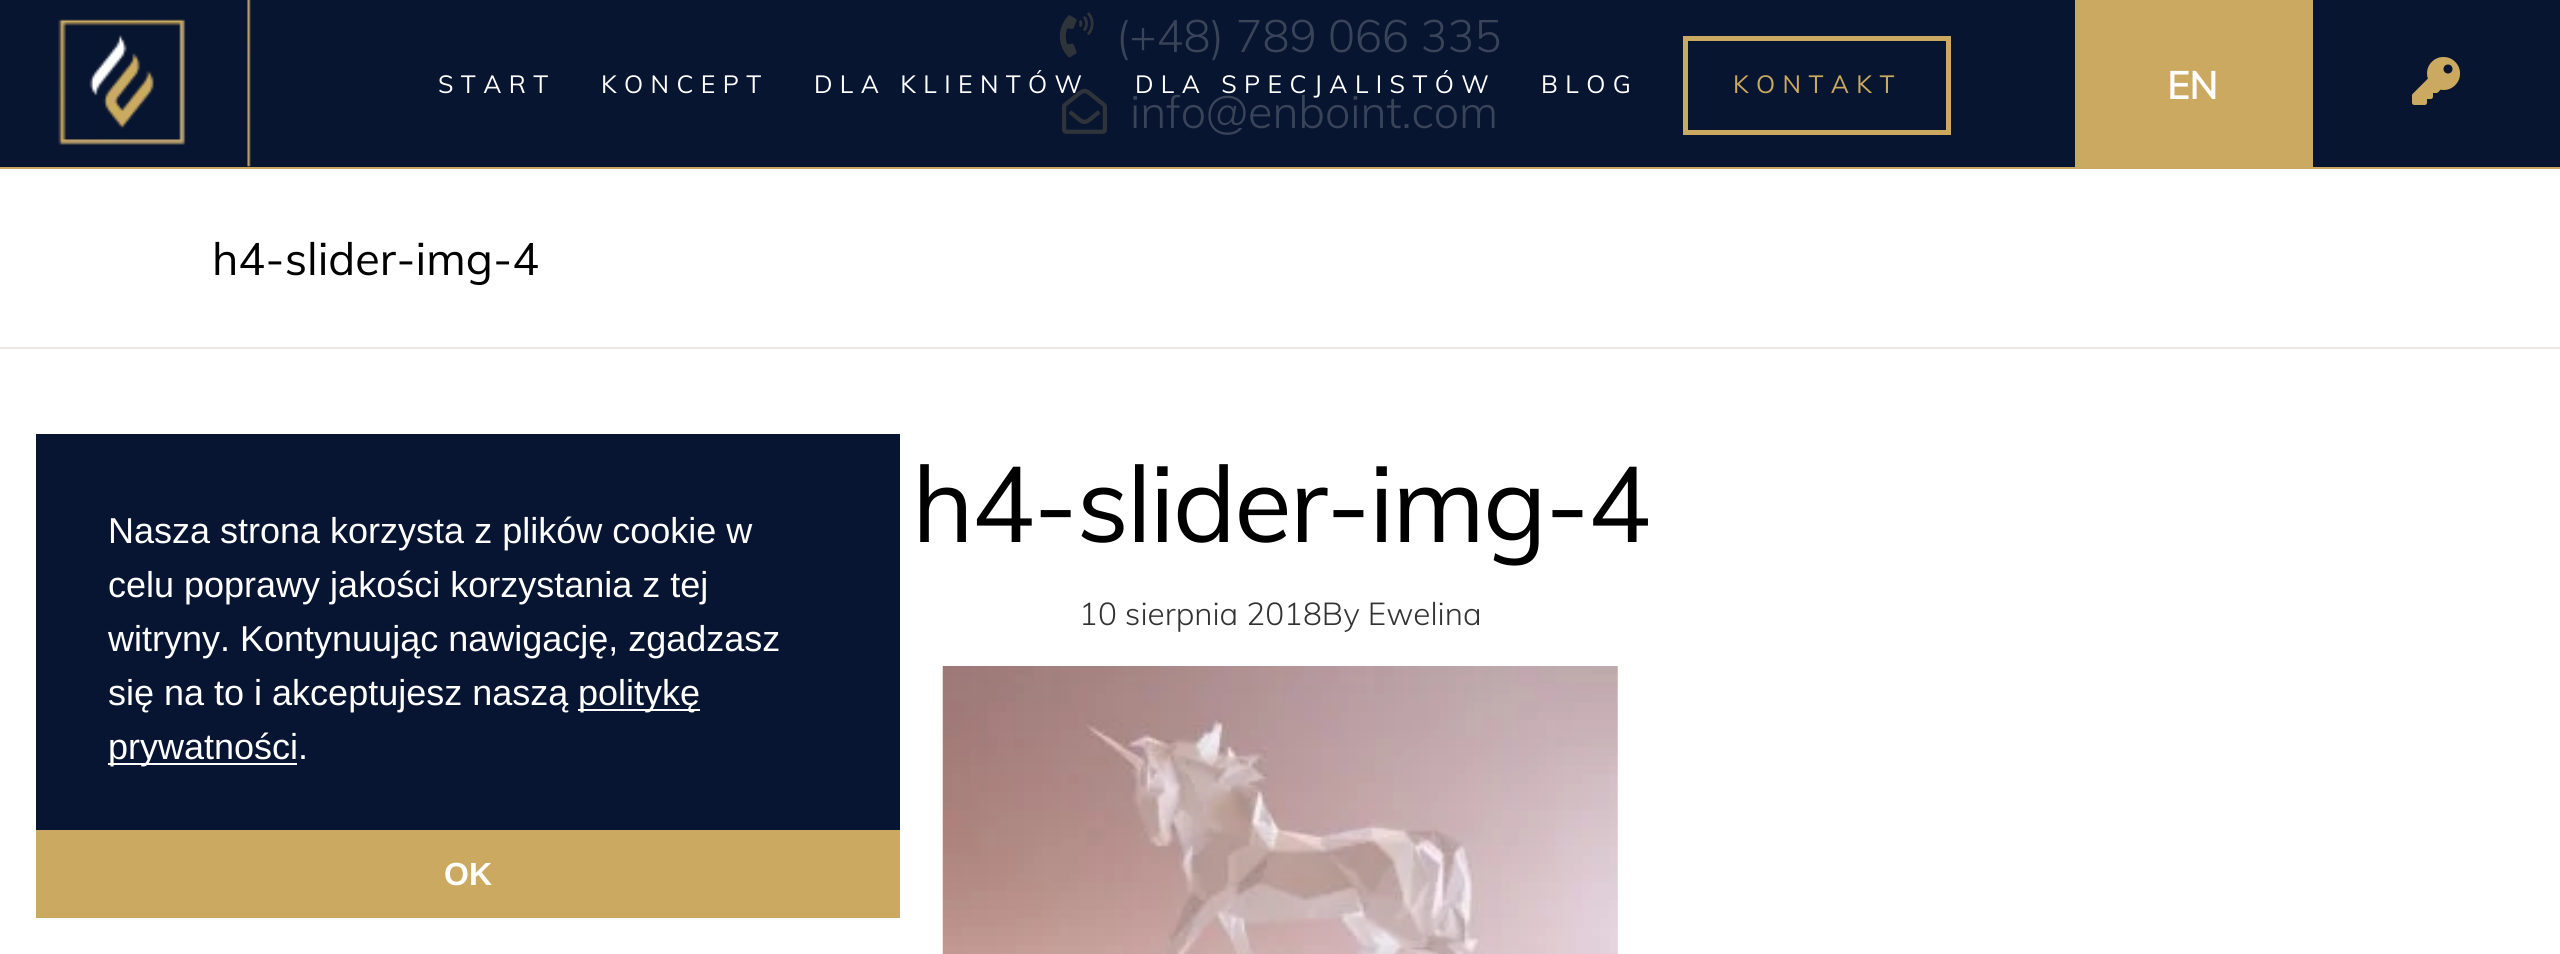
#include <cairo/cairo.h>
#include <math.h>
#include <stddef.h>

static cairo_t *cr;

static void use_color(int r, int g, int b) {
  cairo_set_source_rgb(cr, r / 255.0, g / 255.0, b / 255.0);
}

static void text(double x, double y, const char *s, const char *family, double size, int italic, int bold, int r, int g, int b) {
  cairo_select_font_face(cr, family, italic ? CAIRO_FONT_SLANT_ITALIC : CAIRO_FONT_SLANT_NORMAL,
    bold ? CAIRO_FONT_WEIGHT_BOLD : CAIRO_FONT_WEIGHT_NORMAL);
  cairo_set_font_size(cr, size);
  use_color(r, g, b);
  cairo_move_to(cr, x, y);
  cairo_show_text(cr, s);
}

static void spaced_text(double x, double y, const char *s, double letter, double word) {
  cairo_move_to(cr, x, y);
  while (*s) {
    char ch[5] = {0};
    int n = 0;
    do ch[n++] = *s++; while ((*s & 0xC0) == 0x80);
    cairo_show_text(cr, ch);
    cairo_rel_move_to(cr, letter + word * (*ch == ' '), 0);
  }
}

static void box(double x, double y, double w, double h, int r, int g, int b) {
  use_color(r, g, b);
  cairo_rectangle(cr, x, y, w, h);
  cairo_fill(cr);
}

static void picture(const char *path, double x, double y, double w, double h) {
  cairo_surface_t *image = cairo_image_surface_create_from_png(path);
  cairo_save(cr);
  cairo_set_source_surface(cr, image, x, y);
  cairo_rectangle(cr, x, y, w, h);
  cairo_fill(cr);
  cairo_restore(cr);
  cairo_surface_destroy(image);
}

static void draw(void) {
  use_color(8, 21, 48);
  cairo_paint(cr);
  picture("img_01.png", 1059, 12, 35, 46);
  picture("img_02.png", 1062, 88, 45, 46);
  box(0, 167, 2560, 2, 203, 169, 96);
  picture("img_03.png", 58, 0, 193, 167);
  cairo_rectangle(cr, 1685.5, 38.5, 263, 94);
  cairo_set_line_width(cr, 5);
  cairo_stroke(cr);
  box(2075, 0, 236, 167, 203, 169, 96);
  box(2311, 0, 2, 169, 203, 169, 96);
  picture("img_04.png", 2412, 57, 48, 48);
  box(0, 169, 2560, 785, 255, 255, 255);
  box(0, 347, 2560, 2, 236, 232, 229);
  picture("img_05.png", 942, 666, 676, 288);
  box(36, 434, 864, 396, 8, 21, 50);
  box(578, 709, 122, 2, 255, 255, 255);
  box(108, 763, 189, 2, 255, 255, 255);
  box(36, 830, 864, 88, 203, 169, 96);
  text(1116, 52, "(+48) 789 066 335", "Muli Light", 45, 0, 0, 57, 68, 89);
  text(1130, 128, "info@enboint.com", "Muli Light", 45, 0, 0, 57, 68, 89);
  cairo_select_font_face(cr, "Muli", CAIRO_FONT_SLANT_NORMAL, CAIRO_FONT_WEIGHT_NORMAL);
  cairo_set_font_size(cr, 24.75);
  use_color(255, 255, 255);
  spaced_text(438, 93, "START", 7.4, 0);
  spaced_text(601, 93, "KONCEPT", 7.4, 0);
  spaced_text(814, 93, "DLA KLIENTÓW", 7.4, 0);
  spaced_text(1135, 93, "DLA SPECJALISTÓW", 7.4, 0);
  spaced_text(1541, 93, "BLOG", 7.4, 0);
  use_color(203, 169, 96);
  spaced_text(1733, 93, "KONTAKT", 7.4, 0);
  text(2167, 99, "EN", "Muli", 38, 0, 1, 255, 255, 255);
  text(212, 275, "h4-slider-img-4", "Muli", 45, 0, 0, 0, 0, 0);
  cairo_set_font_size(cr, 105.75);
  spaced_text(912, 542, "h4-slider-img-4", -2.1, 0);
  text(1079, 625, "10 sierpnia 2018By Ewelina", "Muli Light", 31.5, 0, 0, 51, 51, 51);
  text(108, 543, "Nasza strona korzysta z plików cookie w", "Liberation Sans", 36, 0, 0, 255, 255, 255);
  text(108, 597, "celu poprawy jakości korzystania z tej", "Liberation Sans", 36, 0, 0, 255, 255, 255);
  text(108, 651, "witryny. Kontynuując nawigację, zgadzasz", "Liberation Sans", 36, 0, 0, 255, 255, 255);
  text(108, 705, "się na to i akceptujesz naszą", "Liberation Sans", 36, 0, 0, 255, 255, 255);
  text(578, 705, "politykę", "Liberation Sans", 36, 0, 0, 255, 255, 255);
  text(108, 759, "prywatności.", "Liberation Sans", 36, 0, 0, 255, 255, 255);
  text(444, 885, "OK", "Liberation Sans", 32, 0, 1, 255, 255, 255);
}

int main(void) {
  cairo_surface_t *surface = cairo_image_surface_create(CAIRO_FORMAT_RGB24, 2560, 954);
  cr = cairo_create(surface);
  cairo_font_options_t *options = cairo_font_options_create();
  cairo_font_options_set_hint_metrics(options, CAIRO_HINT_METRICS_OFF);
  cairo_font_options_set_hint_style(options, CAIRO_HINT_STYLE_NONE);
  cairo_set_font_options(cr, options);
  cairo_set_miter_limit(cr, 4);
  draw();
  cairo_surface_write_to_png(surface, "out.png");
  cairo_font_options_destroy(options);
  cairo_destroy(cr);
  cairo_surface_destroy(surface);
  return 0;
}
